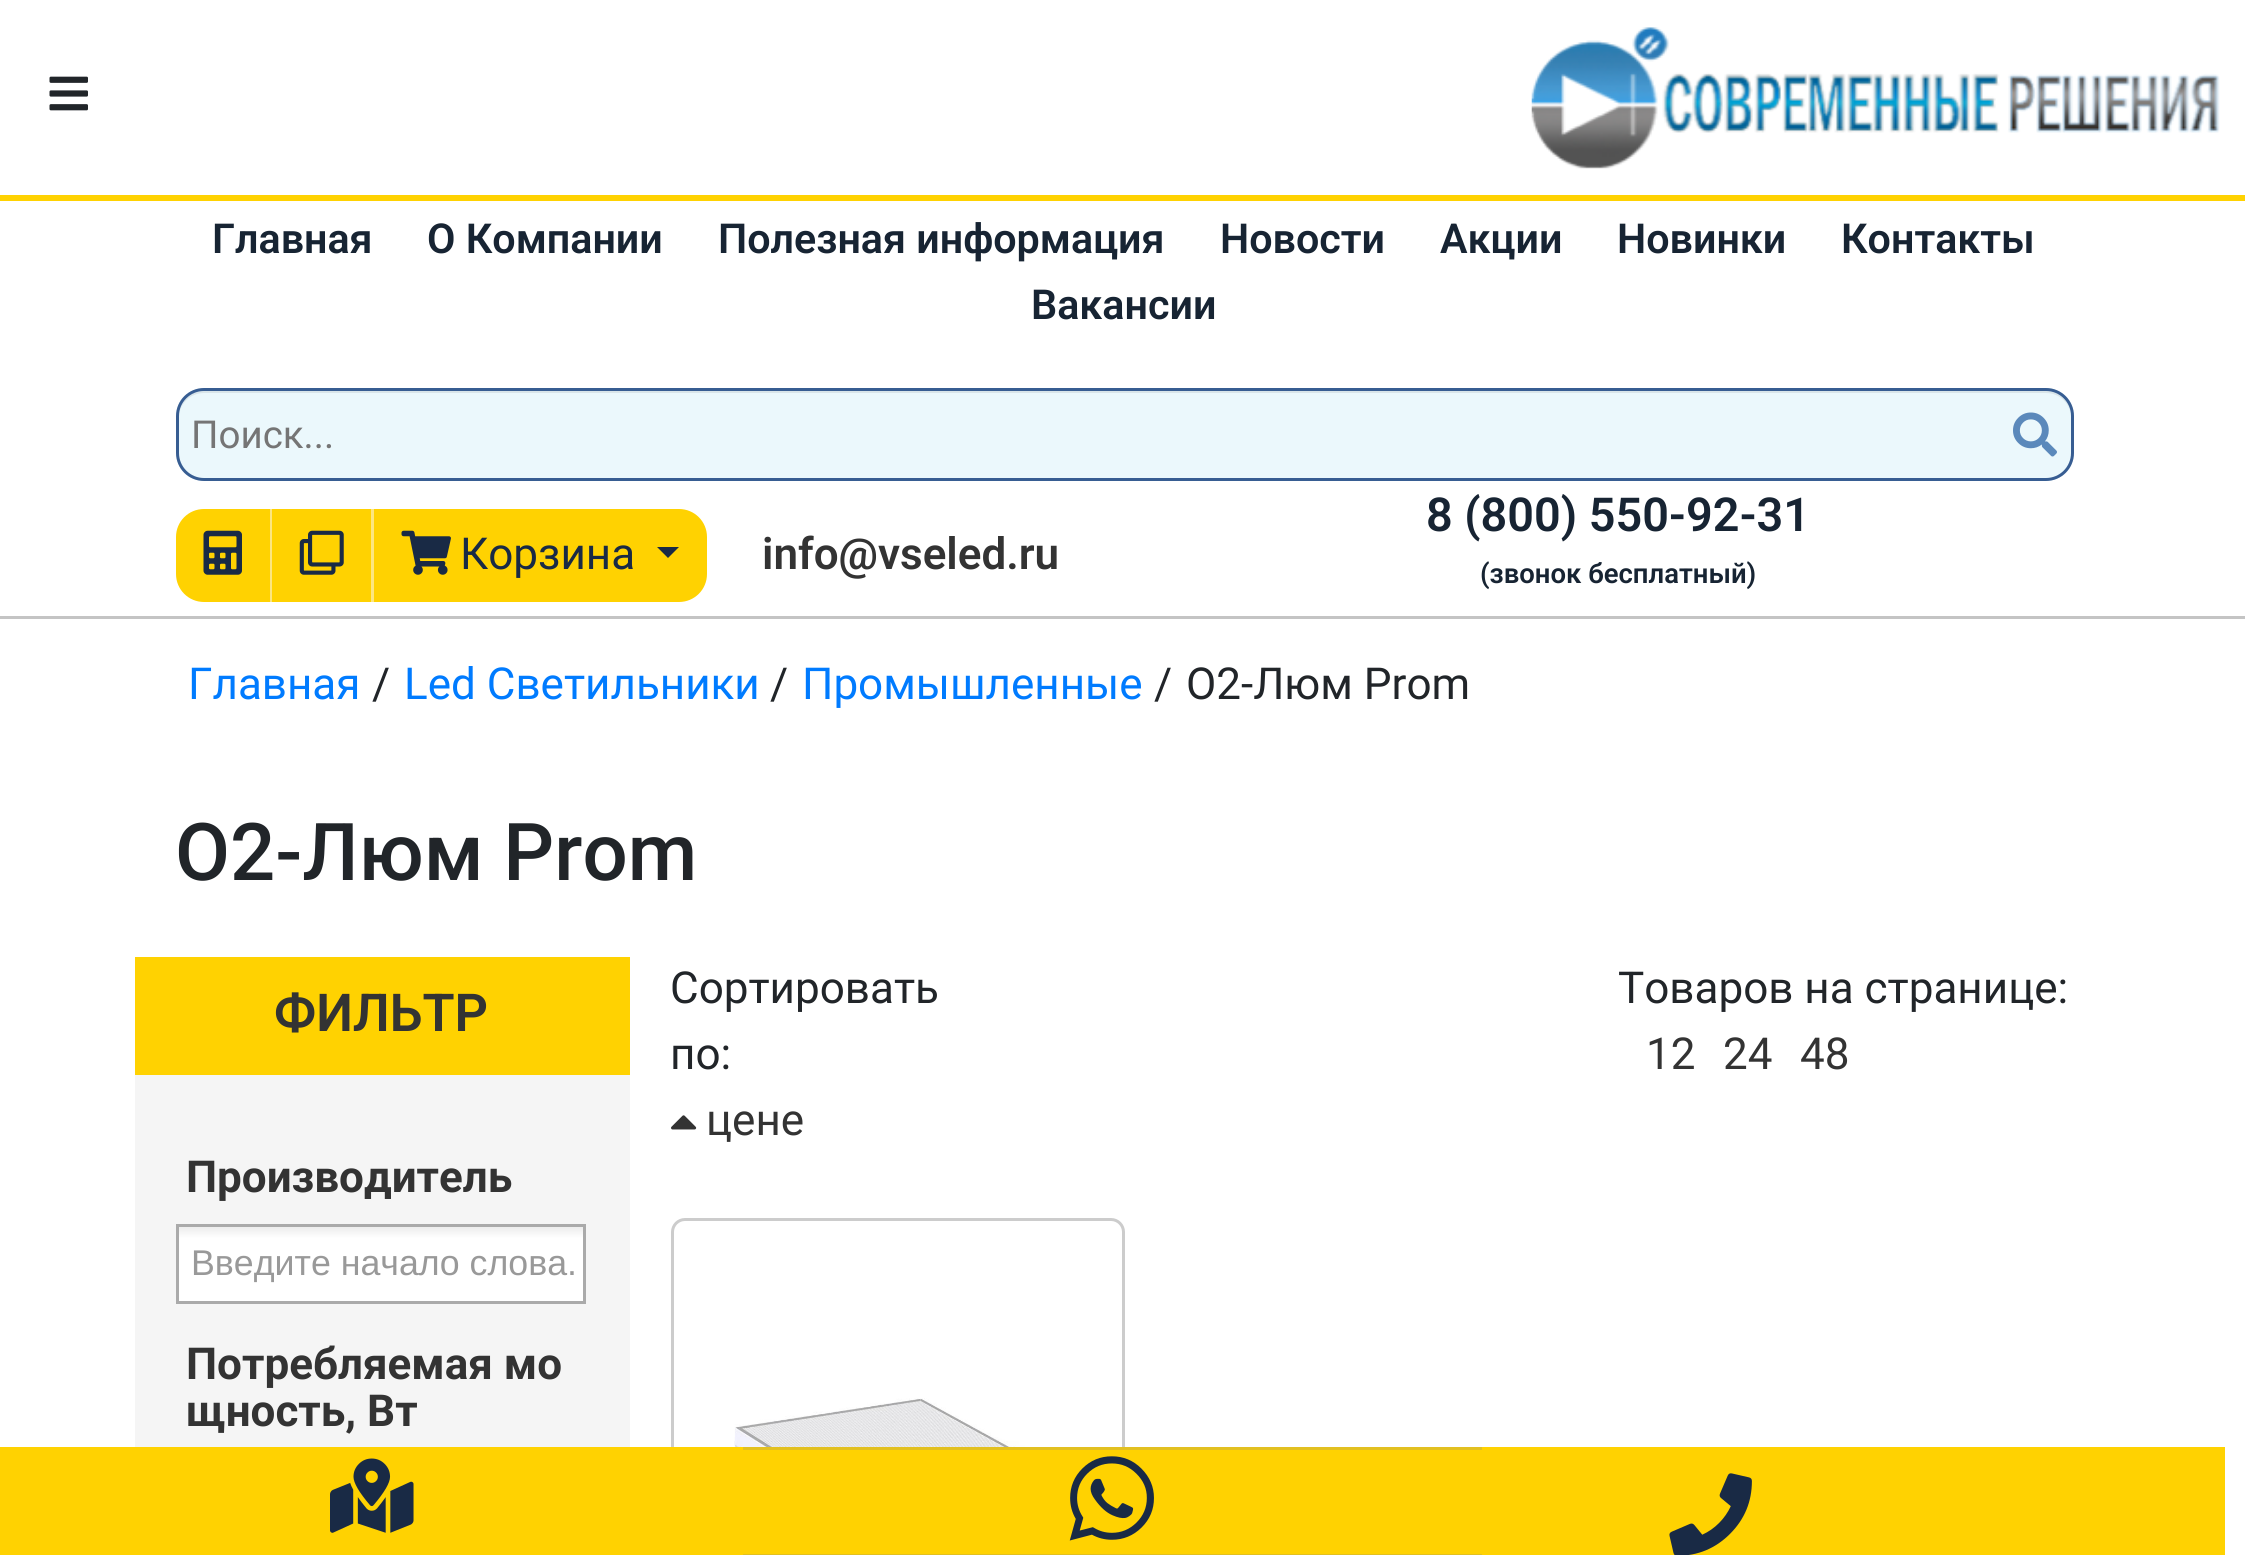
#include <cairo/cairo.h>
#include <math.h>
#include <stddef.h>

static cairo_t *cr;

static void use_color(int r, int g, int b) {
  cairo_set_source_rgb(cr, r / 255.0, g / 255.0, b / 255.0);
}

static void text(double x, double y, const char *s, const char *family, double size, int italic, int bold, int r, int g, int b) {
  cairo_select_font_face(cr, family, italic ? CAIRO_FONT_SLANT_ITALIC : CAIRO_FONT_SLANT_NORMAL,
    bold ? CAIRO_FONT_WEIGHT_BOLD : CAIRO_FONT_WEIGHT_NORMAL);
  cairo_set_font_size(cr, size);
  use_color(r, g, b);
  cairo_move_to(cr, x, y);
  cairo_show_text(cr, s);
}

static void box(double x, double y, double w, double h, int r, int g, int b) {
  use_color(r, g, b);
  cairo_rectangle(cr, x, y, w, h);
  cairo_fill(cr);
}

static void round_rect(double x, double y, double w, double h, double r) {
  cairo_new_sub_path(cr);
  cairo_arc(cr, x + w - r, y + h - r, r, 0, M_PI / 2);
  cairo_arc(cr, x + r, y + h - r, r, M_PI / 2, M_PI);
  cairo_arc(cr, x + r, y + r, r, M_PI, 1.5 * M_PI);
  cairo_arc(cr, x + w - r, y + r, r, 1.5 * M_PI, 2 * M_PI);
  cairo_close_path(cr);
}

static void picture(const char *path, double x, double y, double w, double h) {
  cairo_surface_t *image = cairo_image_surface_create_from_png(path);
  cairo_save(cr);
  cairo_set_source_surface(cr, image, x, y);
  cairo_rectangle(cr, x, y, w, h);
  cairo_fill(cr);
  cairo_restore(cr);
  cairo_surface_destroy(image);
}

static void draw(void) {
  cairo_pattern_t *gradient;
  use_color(255, 255, 255);
  cairo_paint(cr);
  box(0, 195, 2245, 6, 255, 210, 1);
  picture("img_01.png", 49, 76, 39, 35);
  picture("img_02.png", 1531, 27, 689, 142);
  box(0, 616, 2245, 3, 196, 196, 196);
  use_color(235, 248, 252);
  round_rect(176, 388, 1898, 93, 28);
  cairo_fill(cr);
  use_color(217, 229, 233);
  cairo_new_path(cr);
  cairo_move_to(cr, 204, 393);
  cairo_line_to(cr, 2046, 393);
  cairo_curve_to(cr, 2060, 393, 2071, 404, 2071, 418);
  cairo_curve_to(cr, 2071, 403, 2061, 391, 2046, 391);
  cairo_line_to(cr, 204, 391);
  cairo_curve_to(cr, 189, 391, 179, 403, 179, 418);
  cairo_curve_to(cr, 179, 404, 190, 393, 204, 393);
  cairo_close_path(cr);
  cairo_fill(cr);
  round_rect(177.5, 389.5, 1895, 90, 26.5);
  use_color(55, 93, 146);
  cairo_set_line_width(cr, 3);
  cairo_stroke(cr);
  picture("img_03.png", 2013, 412, 44, 45);
  box(270, 509, 2, 93, 252, 230, 129);
  use_color(255, 210, 1);
  cairo_new_path(cr);
  cairo_move_to(cr, 204, 509);
  cairo_line_to(cr, 270, 509);
  cairo_line_to(cr, 270, 602);
  cairo_line_to(cr, 204, 602);
  cairo_curve_to(cr, 188.5, 602, 176, 589.5, 176, 574);
  cairo_line_to(cr, 176, 537);
  cairo_curve_to(cr, 176, 521.5, 188.5, 509, 204, 509);
  cairo_close_path(cr);
  cairo_fill(cr);
  picture("img_04.png", 203, 530, 39, 45);
  box(272, 509, 99, 93, 255, 210, 1);
  box(371, 509, 3, 93, 252, 230, 129);
  picture("img_05.png", 299, 530, 45, 45);
  use_color(255, 210, 1);
  cairo_new_path(cr);
  cairo_move_to(cr, 374, 509);
  cairo_line_to(cr, 679, 509);
  cairo_curve_to(cr, 694.5, 509, 707, 521.5, 707, 537);
  cairo_line_to(cr, 707, 574);
  cairo_curve_to(cr, 707, 589.5, 694.5, 602, 679, 602);
  cairo_line_to(cr, 374, 602);
  cairo_close_path(cr);
  cairo_fill(cr);
  picture("img_06.png", 401, 530, 50, 45);
  use_color(25, 42, 69);
  cairo_new_path(cr);
  cairo_move_to(cr, 657, 547);
  cairo_line_to(cr, 679, 547);
  cairo_line_to(cr, 668, 558);
  cairo_close_path(cr);
  cairo_fill(cr);
  box(135, 1075, 495, 372, 245, 245, 245);
  box(135, 957, 495, 118, 255, 210, 1);
  gradient = cairo_pattern_create_linear(381, 1227, 381, 1301);
  cairo_pattern_add_color_stop_rgba(gradient, 0.01, 0.933, 0.933, 0.933, 1);
  cairo_pattern_add_color_stop_rgba(gradient, 0.15, 1, 1, 1, 1);
  cairo_set_source(cr, gradient);
  cairo_pattern_destroy(gradient);
  cairo_rectangle(cr, 179, 1227, 404, 74);
  cairo_fill(cr);
  cairo_rectangle(cr, 177.5, 1225.5, 407, 77);
  use_color(170, 170, 170);
  cairo_stroke(cr);
  picture("img_07.png", 671, 1115, 26, 15);
  round_rect(672.5, 1219.5, 451, 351, 12.5);
  use_color(204, 204, 204);
  cairo_stroke(cr);
  picture("img_08.png", 734, 1398, 344, 49);
  box(0, 1447, 743, 108, 255, 210, 1);
  picture("img_09.png", 330, 1458, 84, 75);
  box(743, 1450, 739, 104, 255, 210, 1);
  box(743, 1447, 739, 3, 226, 192, 32);
  box(743, 1554, 739, 1, 226, 192, 32);
  picture("img_10.png", 1069, 1456, 85, 85);
  box(1482, 1447, 743, 108, 255, 210, 1);
  picture("img_11.png", 1669, 1473, 83, 82);
  text(212, 253, "Главная", "Roboto SemiBold", 41.25, 0, 0, 23, 36, 51);
  text(427, 253, "О Компании", "Roboto SemiBold", 41.25, 0, 0, 23, 36, 51);
  text(718, 253, "Полезная информация", "Roboto SemiBold", 41.25, 0, 0, 23, 36, 51);
  text(1220, 253, "Новости", "Roboto SemiBold", 41.25, 0, 0, 23, 36, 51);
  text(1440, 253, "Акции", "Roboto SemiBold", 41.25, 0, 0, 23, 36, 51);
  text(1617, 253, "Новинки", "Roboto SemiBold", 41.25, 0, 0, 23, 36, 51);
  text(1841, 253, "Контакты", "Roboto SemiBold", 41.25, 0, 0, 23, 36, 51);
  text(1031, 319, "Вакансии", "Roboto SemiBold", 41.25, 0, 0, 23, 36, 51);
  text(191, 448, "Поиск...", "Roboto", 38.5, 0, 0, 117, 117, 117);
  text(460, 569, "Корзина", "Roboto", 44, 0, 0, 25, 42, 69);
  text(762, 569, "info@vseled.ru", "Roboto SemiBold", 44, 0, 0, 51, 51, 51);
  text(1426, 531, "8 (800) 550-92-31", "Roboto SemiBold", 46.75, 0, 0, 23, 36, 51);
  text(1480, 583, "(звонок бесплатный)", "Roboto SemiBold", 27.5, 0, 0, 23, 36, 51);
  text(188, 699, "Главная", "Roboto", 44, 0, 0, 0, 123, 255);
  text(372, 699, "/", "Roboto", 44, 0, 0, 33, 37, 41);
  text(404, 699, "Led Светильники", "Roboto", 44, 0, 0, 0, 123, 255);
  text(770, 699, "/", "Roboto", 44, 0, 0, 33, 37, 41);
  text(802, 699, "Промышленные", "Roboto", 44, 0, 0, 0, 123, 255);
  text(1154, 699, "/", "Roboto", 44, 0, 0, 33, 37, 41);
  text(1186, 699, "О2-Люм Prom", "Roboto", 44, 0, 0, 33, 37, 41);
  text(175, 880, "О2-Люм Prom", "Roboto Medium", 79.75, 0, 0, 33, 37, 41);
  text(274, 1031, "ФИЛЬТР", "Roboto SemiBold", 52.25, 0, 0, 51, 51, 51);
  text(186, 1192, "Производитель", "Roboto", 44, 0, 1, 51, 51, 51);
  text(191, 1275, "Введите начало слова.", "Liberation Sans", 35.75, 0, 0, 153, 153, 153);
  text(186, 1379, "Потребляемая мо", "Roboto", 44, 0, 1, 51, 51, 51);
  text(186, 1426, "щность, Вт", "Roboto", 44, 0, 1, 51, 51, 51);
  text(670, 1003, "Сортировать", "Roboto", 44, 0, 0, 33, 37, 41);
  text(670, 1069, "по:", "Roboto", 44, 0, 0, 33, 37, 41);
  text(706, 1135, "цене", "Roboto", 44, 0, 0, 51, 51, 51);
  text(1618, 1003, "Товаров на странице:", "Roboto", 44, 0, 0, 33, 37, 41);
  text(1646, 1069, "12", "Roboto", 44, 0, 0, 51, 51, 51);
  text(1723, 1069, "24", "Roboto", 44, 0, 0, 51, 51, 51);
  text(1800, 1069, "48", "Roboto", 44, 0, 0, 51, 51, 51);
}

int main(void) {
  cairo_surface_t *surface = cairo_image_surface_create(CAIRO_FORMAT_RGB24, 2245, 1555);
  cr = cairo_create(surface);
  cairo_font_options_t *options = cairo_font_options_create();
  cairo_font_options_set_hint_metrics(options, CAIRO_HINT_METRICS_OFF);
  cairo_font_options_set_hint_style(options, CAIRO_HINT_STYLE_NONE);
  cairo_set_font_options(cr, options);
  cairo_set_miter_limit(cr, 4);
  draw();
  cairo_surface_write_to_png(surface, "out.png");
  cairo_font_options_destroy(options);
  cairo_destroy(cr);
  cairo_surface_destroy(surface);
  return 0;
}
